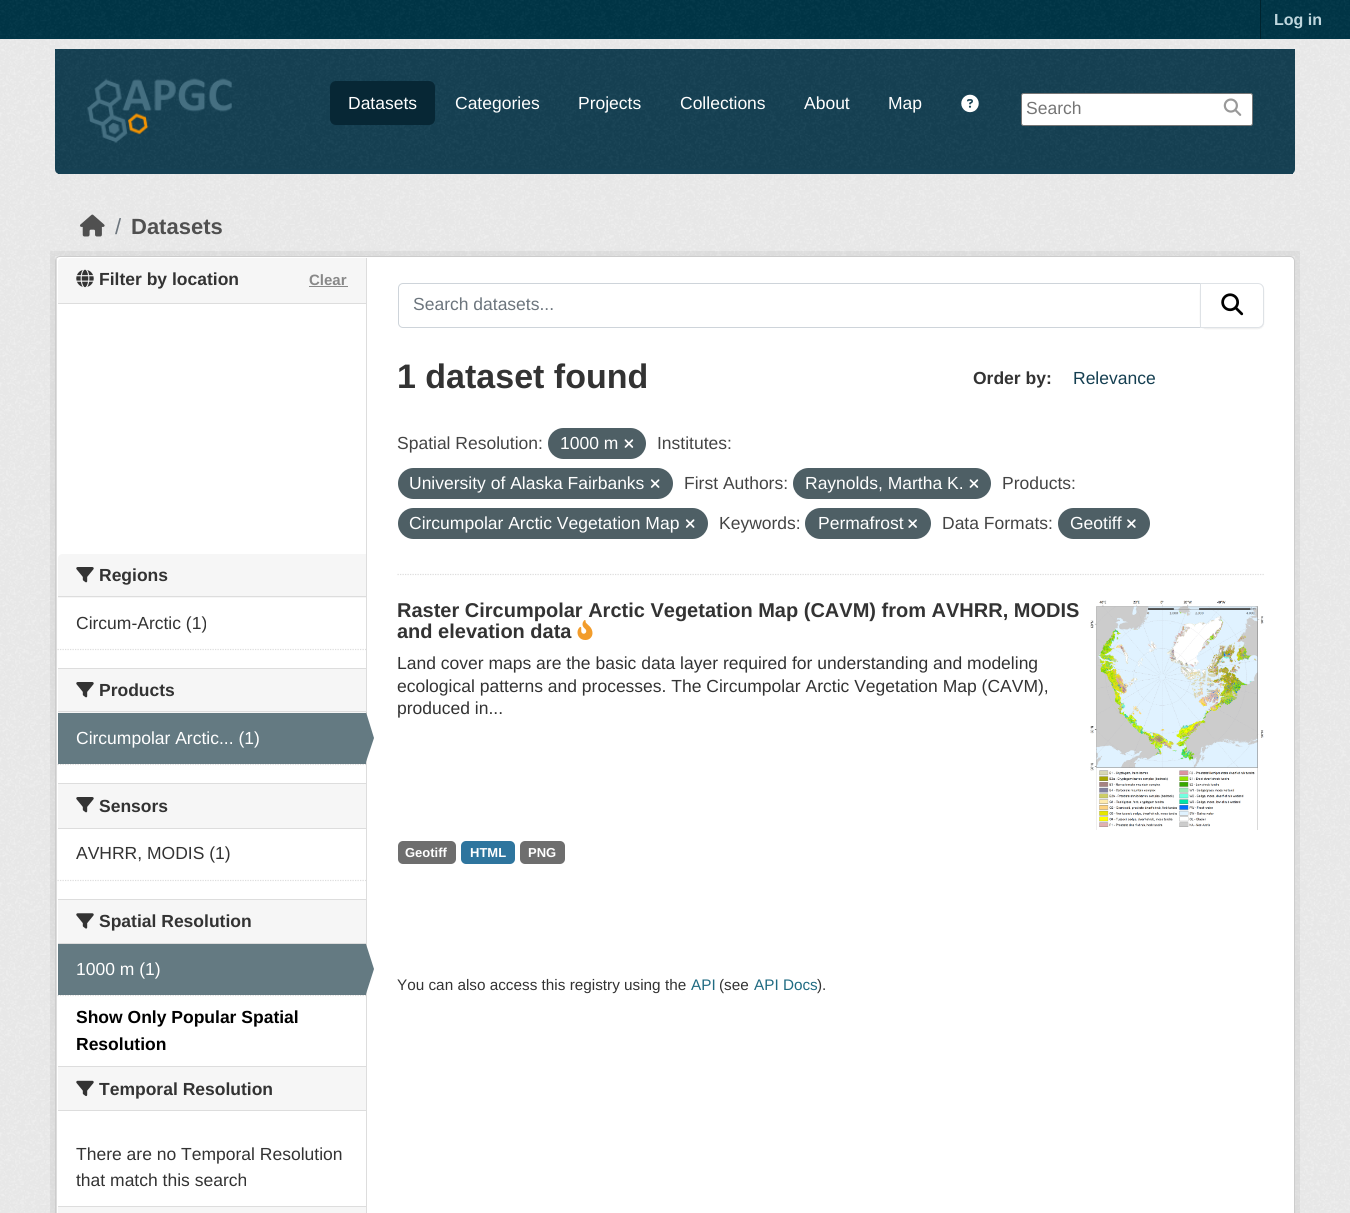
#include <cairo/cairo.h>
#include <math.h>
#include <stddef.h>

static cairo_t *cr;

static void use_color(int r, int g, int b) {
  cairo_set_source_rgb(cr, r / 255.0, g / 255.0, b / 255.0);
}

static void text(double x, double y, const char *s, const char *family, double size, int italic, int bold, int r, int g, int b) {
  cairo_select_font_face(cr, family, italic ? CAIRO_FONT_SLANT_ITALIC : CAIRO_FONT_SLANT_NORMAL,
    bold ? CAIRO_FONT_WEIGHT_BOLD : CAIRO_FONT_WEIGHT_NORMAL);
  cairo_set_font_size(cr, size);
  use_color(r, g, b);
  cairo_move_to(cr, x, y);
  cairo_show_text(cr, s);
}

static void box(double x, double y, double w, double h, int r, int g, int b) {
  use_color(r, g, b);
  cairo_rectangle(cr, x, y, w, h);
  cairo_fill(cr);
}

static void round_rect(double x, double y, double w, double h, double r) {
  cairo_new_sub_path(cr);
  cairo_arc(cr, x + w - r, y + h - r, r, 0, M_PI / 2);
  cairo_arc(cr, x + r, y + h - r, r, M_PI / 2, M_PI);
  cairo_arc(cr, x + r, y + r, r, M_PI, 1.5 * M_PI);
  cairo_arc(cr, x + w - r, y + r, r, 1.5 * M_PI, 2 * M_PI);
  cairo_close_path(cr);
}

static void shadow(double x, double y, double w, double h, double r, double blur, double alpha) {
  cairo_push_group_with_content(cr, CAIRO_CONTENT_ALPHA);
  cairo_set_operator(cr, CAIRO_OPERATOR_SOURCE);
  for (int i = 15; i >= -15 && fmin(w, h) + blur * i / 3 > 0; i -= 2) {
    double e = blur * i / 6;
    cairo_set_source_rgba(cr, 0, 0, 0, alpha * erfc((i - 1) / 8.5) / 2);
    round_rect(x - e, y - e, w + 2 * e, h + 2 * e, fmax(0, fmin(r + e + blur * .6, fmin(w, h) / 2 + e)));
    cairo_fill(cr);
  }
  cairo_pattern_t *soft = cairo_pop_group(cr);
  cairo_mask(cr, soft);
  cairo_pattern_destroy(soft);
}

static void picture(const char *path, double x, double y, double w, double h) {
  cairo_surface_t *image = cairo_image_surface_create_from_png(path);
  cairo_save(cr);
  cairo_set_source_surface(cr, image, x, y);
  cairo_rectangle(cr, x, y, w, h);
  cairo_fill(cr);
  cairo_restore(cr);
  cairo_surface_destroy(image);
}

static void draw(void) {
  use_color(0, 54, 71);
  cairo_paint(cr);
  picture("img_01.png", 0, 0, 1350, 38);
  box(1260, 0, 1, 39, 0, 35, 46);
  box(0, 39, 1350, 1174, 238, 238, 238);
  picture("img_02.png", 0, 39, 1350, 145);
  use_color(22, 65, 84);
  cairo_new_path(cr);
  cairo_move_to(cr, 55, 49);
  cairo_line_to(cr, 1295, 49);
  cairo_line_to(cr, 1295, 169);
  cairo_curve_to(cr, 1295, 172, 1293, 174, 1290, 174);
  cairo_line_to(cr, 60, 174);
  cairo_curve_to(cr, 57, 174, 55, 172, 55, 169);
  cairo_close_path(cr);
  cairo_fill(cr);
  picture("img_03.png", 55, 49, 1240, 124);
  box(58, 169, 1235, 5, 22, 65, 84);
  picture("img_04.png", 87, 78, 145, 65);
  use_color(7, 39, 53);
  round_rect(330, 81, 105, 44, 6);
  cairo_fill(cr);
  picture("img_05.png", 961, 94, 18, 19);
  use_color(255, 255, 255);
  round_rect(1021.5, 93.5, 231, 32, 2);
  cairo_fill_preserve(cr);
  use_color(118, 118, 118);
  cairo_set_line_width(cr, 1);
  cairo_stroke(cr);
  picture("img_06.png", 1223, 98, 19, 18);
  picture("img_07.png", 0, 184, 1350, 1029);
  picture("img_08.png", 80, 214, 25, 23);
  cairo_rectangle(cr, 52.5, 253.5, 1245, 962);
  cairo_set_source_rgba(cr, 0, 0, 0, 0.05);
  cairo_set_line_width(cr, 5);
  cairo_stroke(cr);
  use_color(255, 255, 255);
  round_rect(55.5, 256.5, 1239, 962, 4.5);
  cairo_fill_preserve(cr);
  use_color(204, 204, 204);
  cairo_set_line_width(cr, 1);
  cairo_stroke(cr);
  box(56, 258, 1, 955, 221, 221, 221);
  use_color(246, 246, 246);
  cairo_new_path(cr);
  cairo_move_to(cr, 62, 258);
  cairo_line_to(cr, 366, 258);
  cairo_line_to(cr, 366, 304);
  cairo_line_to(cr, 58, 304);
  cairo_line_to(cr, 58, 262);
  cairo_curve_to(cr, 58, 260, 60, 258, 62, 258);
  cairo_close_path(cr);
  cairo_fill(cr);
  box(58, 303, 308, 1, 221, 221, 221);
  picture("img_09.png", 76, 269, 18, 19);
  box(309, 286, 39, 1, 136, 136, 136);
  use_color(246, 246, 246);
  cairo_new_path(cr);
  cairo_move_to(cr, 62, 554);
  cairo_line_to(cr, 366, 554);
  cairo_line_to(cr, 366, 598);
  cairo_line_to(cr, 58, 598);
  cairo_line_to(cr, 58, 558);
  cairo_curve_to(cr, 58, 556, 60, 554, 62, 554);
  cairo_close_path(cr);
  cairo_fill(cr);
  box(58, 596, 308, 1, 221, 221, 221);
  picture("img_10.png", 76, 567, 18, 16);
  cairo_new_path(cr);
  cairo_move_to(cr, 57.5, 649.5);
  cairo_line_to(cr, 366, 649.5);
  cairo_set_line_width(cr, 1.2);
  cairo_set_dash(cr, (double[]){1.25, 1.25}, 2, 0);
  cairo_stroke(cr);
  box(58, 669, 308, 44, 246, 246, 246);
  box(58, 668, 308, 1, 221, 221, 221);
  box(58, 711, 308, 1, 221, 221, 221);
  picture("img_10.png", 76, 682, 18, 16);
  cairo_new_path(cr);
  cairo_move_to(cr, 57.5, 764.5);
  cairo_line_to(cr, 366, 764.5);
  cairo_stroke(cr);
  box(58, 713, 308, 51, 100, 122, 130);
  box(366, 258, 1, 955, 221, 221, 221);
  use_color(100, 122, 130);
  cairo_new_path(cr);
  cairo_move_to(cr, 366, 762);
  cairo_line_to(cr, 366, 712);
  cairo_line_to(cr, 374, 738);
  cairo_close_path(cr);
  cairo_fill(cr);
  box(58, 784, 308, 44, 246, 246, 246);
  box(58, 783, 308, 1, 221, 221, 221);
  box(58, 828, 308, 1, 221, 221, 221);
  picture("img_10.png", 76, 797, 18, 16);
  cairo_new_path(cr);
  cairo_move_to(cr, 57.5, 880.5);
  cairo_line_to(cr, 366, 880.5);
  cairo_stroke(cr);
  box(58, 900, 308, 43, 246, 246, 246);
  box(58, 899, 308, 1, 221, 221, 221);
  box(58, 943, 308, 1, 221, 221, 221);
  picture("img_11.png", 76, 913, 18, 16);
  cairo_new_path(cr);
  cairo_move_to(cr, 57.5, 995.5);
  cairo_line_to(cr, 366, 995.5);
  cairo_stroke(cr);
  box(58, 944, 308, 51, 100, 122, 130);
  cairo_new_path(cr);
  cairo_move_to(cr, 366, 994);
  cairo_line_to(cr, 366, 944);
  cairo_line_to(cr, 374, 969);
  cairo_close_path(cr);
  cairo_fill(cr);
  box(58, 1067, 308, 43, 246, 246, 246);
  box(58, 1066, 308, 1, 221, 221, 221);
  box(58, 1110, 308, 1, 221, 221, 221);
  picture("img_12.png", 76, 1080, 18, 17);
  box(58, 1207, 308, 6, 246, 246, 246);
  box(58, 1206, 308, 1, 221, 221, 221);
  cairo_new_path(cr);
  cairo_move_to(cr, 397.5, 574.5);
  cairo_line_to(cr, 1264, 574.5);
  cairo_stroke(cr);
  cairo_new_path(cr);
  cairo_move_to(cr, 403, 283.5);
  cairo_line_to(cr, 1200.5, 283.5);
  cairo_line_to(cr, 1200.5, 327.5);
  cairo_line_to(cr, 403, 327.5);
  cairo_curve_to(cr, 400.5, 327.5, 398.5, 325.5, 398.5, 323);
  cairo_line_to(cr, 398.5, 288);
  cairo_curve_to(cr, 398.5, 285.5, 400.5, 283.5, 403, 283.5);
  cairo_close_path(cr);
  use_color(206, 212, 218);
  cairo_set_line_width(cr, 1);
  cairo_set_dash(cr, NULL, 0, 0);
  cairo_stroke(cr);
  use_color(0, 0, 0);
  shadow(1200, 284, 64, 45, 6, 0.5, 0.07);
  use_color(255, 255, 255);
  cairo_new_path(cr);
  cairo_move_to(cr, 1200.5, 283.5);
  cairo_line_to(cr, 1258, 283.5);
  cairo_curve_to(cr, 1261, 283.5, 1263.5, 286, 1263.5, 289);
  cairo_line_to(cr, 1263.5, 322);
  cairo_curve_to(cr, 1263.5, 325, 1261, 327.5, 1258, 327.5);
  cairo_line_to(cr, 1200.5, 327.5);
  cairo_close_path(cr);
  cairo_fill_preserve(cr);
  use_color(222, 226, 230);
  cairo_stroke(cr);
  picture("img_13.png", 1221, 293, 23, 23);
  use_color(78, 95, 101);
  round_rect(548, 428, 98, 31, 15.5);
  cairo_fill(cr);
  picture("img_14.png", 624, 439, 10, 9);
  round_rect(398, 468, 275, 31, 15.5);
  cairo_fill(cr);
  picture("img_15.png", 650, 479, 10, 9);
  round_rect(793, 468, 198, 31, 15.5);
  cairo_fill(cr);
  picture("img_14.png", 969, 479, 10, 9);
  round_rect(398, 508, 310, 31, 15.5);
  cairo_fill(cr);
  picture("img_15.png", 685, 519, 10, 9);
  round_rect(805, 508, 126, 31, 15.5);
  cairo_fill(cr);
  picture("img_16.png", 908, 519, 9, 9);
  round_rect(1058, 508, 92, 31, 15.5);
  cairo_fill(cr);
  picture("img_17.png", 1127, 519, 9, 9);
  picture("img_19.png", 1090, 600, 174, 230);
  use_color(110, 110, 110);
  round_rect(398, 841, 58, 23, 5);
  cairo_fill(cr);
  use_color(46, 117, 158);
  round_rect(461, 841, 54, 23, 5);
  cairo_fill(cr);
  use_color(110, 110, 110);
  round_rect(520, 841, 45, 23, 5);
  cairo_fill(cr);
  text(1274, 25, "Log in", "Liberation Sans", 16, 0, 1, 191, 215, 222);
  text(348, 109, "Datasets", "Liberation Sans", 17.5, 0, 0, 255, 255, 255);
  text(455, 109, "Categories", "Liberation Sans", 17.5, 0, 0, 255, 255, 255);
  text(578, 109, "Projects", "Liberation Sans", 17.5, 0, 0, 255, 255, 255);
  text(680, 109, "Collections", "Liberation Sans", 17.5, 0, 0, 255, 255, 255);
  text(804, 109, "About", "Liberation Sans", 17.5, 0, 0, 255, 255, 255);
  text(888, 109, "Map", "Liberation Sans", 17.5, 0, 0, 255, 255, 255);
  text(1026, 114, "Search", "Liberation Sans", 17.5, 0, 0, 117, 117, 117);
  text(115, 234, "/", "Liberation Sans", 22, 0, 0, 108, 117, 125);
  text(131, 234, "Datasets", "Liberation Sans", 22, 0, 1, 80, 80, 80);
  text(99, 285, "Filter by location", "Liberation Sans", 17.5, 0, 1, 51, 51, 51);
  text(309, 285, "Clear", "Liberation Sans", 15, 0, 1, 136, 136, 136);
  text(99, 581, "Regions", "Liberation Sans", 17.5, 0, 1, 51, 51, 51);
  text(76, 629, "Circum-Arctic (1)", "Liberation Sans", 17.5, 0, 0, 51, 51, 51);
  text(99, 696, "Products", "Liberation Sans", 17.5, 0, 1, 51, 51, 51);
  text(76, 744, "Circumpolar Arctic... (1)", "Liberation Sans", 17.5, 0, 0, 255, 255, 255);
  text(99, 812, "Sensors", "Liberation Sans", 17.5, 0, 1, 51, 51, 51);
  text(76, 859, "AVHRR, MODIS (1)", "Liberation Sans", 17.5, 0, 0, 51, 51, 51);
  text(99, 927, "Spatial Resolution", "Liberation Sans", 17.5, 0, 1, 51, 51, 51);
  text(76, 975, "1000 m (1)", "Liberation Sans", 17.5, 0, 0, 255, 255, 255);
  text(76, 1023, "Show Only Popular Spatial", "Liberation Sans", 17.5, 0, 1, 0, 0, 0);
  text(76, 1050, "Resolution", "Liberation Sans", 17.5, 0, 1, 0, 0, 0);
  text(99, 1095, "Temporal Resolution", "Liberation Sans", 17.5, 0, 1, 51, 51, 51);
  text(76, 1160, "There are no Temporal Resolution", "Liberation Sans", 17.5, 0, 0, 51, 51, 51);
  text(76, 1186, "that match this search", "Liberation Sans", 17.5, 0, 0, 51, 51, 51);
  text(413, 310, "Search datasets...", "Liberation Sans", 17.5, 0, 0, 108, 117, 125);
  text(397, 388, "1 dataset found", "Liberation Sans", 34, 0, 1, 51, 51, 51);
  text(973, 384, "Order by:", "Liberation Sans", 17.5, 0, 1, 51, 51, 51);
  text(1073, 384, "Relevance", "Liberation Sans", 17.5, 0, 0, 21, 63, 81);
  text(397, 449, "Spatial Resolution:", "Liberation Sans", 17.5, 0, 0, 68, 68, 68);
  text(560, 449, "1000 m", "Liberation Sans", 17.5, 0, 0, 255, 255, 255);
  text(657, 449, "Institutes:", "Liberation Sans", 17.5, 0, 0, 68, 68, 68);
  text(409, 489, "University of Alaska Fairbanks", "Liberation Sans", 17.5, 0, 0, 255, 255, 255);
  text(684, 489, "First Authors:", "Liberation Sans", 17.5, 0, 0, 68, 68, 68);
  text(805, 489, "Raynolds, Martha K.", "Liberation Sans", 17.5, 0, 0, 255, 255, 255);
  text(1002, 489, "Products:", "Liberation Sans", 17.5, 0, 0, 68, 68, 68);
  text(409, 529, "Circumpolar Arctic Vegetation Map", "Liberation Sans", 17.5, 0, 0, 255, 255, 255);
  text(719, 529, "Keywords:", "Liberation Sans", 17.5, 0, 0, 68, 68, 68);
  text(818, 529, "Permafrost", "Liberation Sans", 17.5, 0, 0, 255, 255, 255);
  text(942, 529, "Data Formats:", "Liberation Sans", 17.5, 0, 0, 68, 68, 68);
  text(1070, 529, "Geotiff", "Liberation Sans", 17.5, 0, 0, 255, 255, 255);
  text(397, 617, "Raster Circumpolar Arctic Vegetation Map (CAVM) from AVHRR, MODIS", "Liberation Sans", 20, 0, 1, 51, 51, 51);
  text(397, 638, "and elevation data", "Liberation Sans", 20, 0, 1, 51, 51, 51);
  picture("img_18.png", 577, 620, 16, 20);
  text(397, 669, "Land cover maps are the basic data layer required for understanding and modeling", "Liberation Sans", 17.5, 0, 0, 51, 51, 51);
  text(397, 692, "ecological patterns and processes. The Circumpolar Arctic Vegetation Map (CAVM),", "Liberation Sans", 17.5, 0, 0, 51, 51, 51);
  text(397, 714, "produced in...", "Liberation Sans", 17.5, 0, 0, 51, 51, 51);
  text(405, 857, "Geotiff", "Liberation Sans", 13, 0, 1, 255, 255, 255);
  text(470, 857, "HTML", "Liberation Sans", 13, 0, 1, 255, 255, 255);
  text(528, 857, "PNG", "Liberation Sans", 13, 0, 1, 255, 255, 255);
  text(397, 990, "You can also access this registry using the", "Liberation Sans", 15.3, 0, 0, 51, 51, 51);
  text(691, 990, "API", "Liberation Sans", 15.3, 0, 0, 32, 107, 130);
  text(719, 990, "(see", "Liberation Sans", 15.3, 0, 0, 51, 51, 51);
  text(754, 990, "API Docs", "Liberation Sans", 15.3, 0, 0, 32, 107, 130);
  text(817, 990, ").", "Liberation Sans", 15.3, 0, 0, 51, 51, 51);
}

int main(void) {
  cairo_surface_t *surface = cairo_image_surface_create(CAIRO_FORMAT_RGB24, 1350, 1213);
  cr = cairo_create(surface);
  cairo_font_options_t *options = cairo_font_options_create();
  cairo_font_options_set_hint_metrics(options, CAIRO_HINT_METRICS_OFF);
  cairo_font_options_set_hint_style(options, CAIRO_HINT_STYLE_NONE);
  cairo_set_font_options(cr, options);
  cairo_set_miter_limit(cr, 4);
  draw();
  cairo_surface_write_to_png(surface, "out.png");
  cairo_font_options_destroy(options);
  cairo_destroy(cr);
  cairo_surface_destroy(surface);
  return 0;
}
